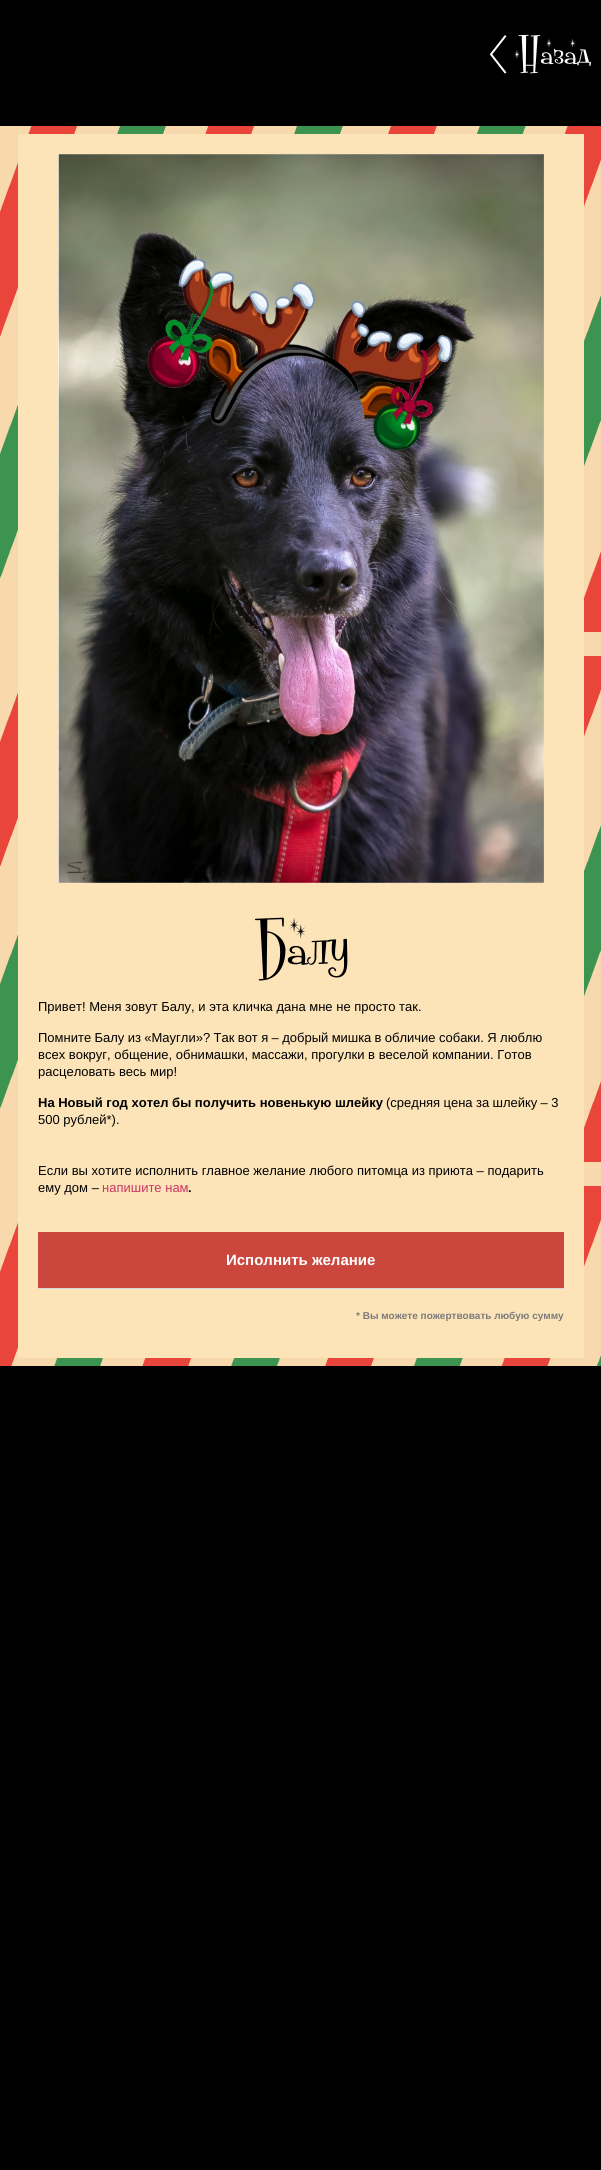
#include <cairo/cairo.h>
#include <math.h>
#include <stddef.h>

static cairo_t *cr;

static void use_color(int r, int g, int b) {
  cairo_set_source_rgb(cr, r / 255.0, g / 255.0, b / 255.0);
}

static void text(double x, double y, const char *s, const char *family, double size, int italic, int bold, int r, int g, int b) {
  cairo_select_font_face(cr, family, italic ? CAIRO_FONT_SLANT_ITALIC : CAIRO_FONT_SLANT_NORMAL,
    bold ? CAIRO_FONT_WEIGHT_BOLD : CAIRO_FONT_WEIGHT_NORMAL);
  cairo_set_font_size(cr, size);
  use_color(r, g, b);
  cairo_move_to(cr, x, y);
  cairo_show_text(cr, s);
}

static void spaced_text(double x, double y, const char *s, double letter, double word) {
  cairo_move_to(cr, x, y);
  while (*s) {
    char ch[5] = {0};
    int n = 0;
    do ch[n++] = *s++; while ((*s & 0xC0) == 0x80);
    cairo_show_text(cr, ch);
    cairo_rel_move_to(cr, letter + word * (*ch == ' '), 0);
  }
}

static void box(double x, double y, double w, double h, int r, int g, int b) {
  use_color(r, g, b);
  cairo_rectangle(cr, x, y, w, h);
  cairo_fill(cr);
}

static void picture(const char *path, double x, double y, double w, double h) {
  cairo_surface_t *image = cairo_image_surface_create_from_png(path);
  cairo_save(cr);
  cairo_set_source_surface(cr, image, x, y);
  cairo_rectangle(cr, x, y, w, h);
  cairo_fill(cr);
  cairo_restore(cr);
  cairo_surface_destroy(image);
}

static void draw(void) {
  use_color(0, 0, 0);
  cairo_paint(cr);
  picture("img_01.png", 490, 34, 101, 40);
  picture("img_02.png", 0, 126, 601, 1240);
  box(18, 134, 566, 1224, 253, 228, 184);
  picture("img_03.png", 58, 154, 486, 729);
  box(38, 1232, 526, 56, 203, 71, 61);
  box(38, 1288, 526, 1, 213, 216, 220);
  text(254, 963, "Балу", "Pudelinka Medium", 64, 0, 0, 0, 0, 0);
  text(38, 1011, "Привет! Меня зовут Балу, и эта кличка дана мне не просто так.", "Liberation Sans", 13, 0, 0, 0, 0, 0);
  spaced_text(38, 1042, "Помните Балу из «Маугли»? Так вот я – добрый мишка в обличие собаки. Я люблю", 0, -0.25);
  text(38, 1059, "всех вокруг, общение, обнимашки, массажи, прогулки в веселой компании. Готов", "Liberation Sans", 13, 0, 0, 0, 0, 0);
  text(38, 1076, "расцеловать весь мир!", "Liberation Sans", 13, 0, 0, 0, 0, 0);
  text(38, 1107, "На Новый год хотел бы получить новенькую шлейку", "Liberation Sans", 13, 0, 1, 0, 0, 0);
  cairo_select_font_face(cr, "Liberation Sans", CAIRO_FONT_SLANT_NORMAL, CAIRO_FONT_WEIGHT_NORMAL);
  spaced_text(386, 1107, "(средняя цена за шлейку – 3", 0, -0.25);
  text(38, 1124, "500 рублей*).", "Liberation Sans", 13, 0, 0, 0, 0, 0);
  text(38, 1175, "Если вы хотите исполнить главное желание любого питомца из приюта – подарить", "Liberation Sans", 13, 0, 0, 0, 0, 0);
  text(38, 1192, "ему дом –", "Liberation Sans", 13, 0, 0, 0, 0, 0);
  text(102, 1192, "напишите нам", "Liberation Sans", 13, 0, 0, 204, 51, 102);
  text(188, 1192, ".", "Noto Sans SemiBold", 13, 0, 0, 0, 0, 0);
  text(226, 1265, "Исполнить желание", "Liberation Sans", 15, 0, 1, 255, 255, 255);
  text(356, 1319, "* Вы можете пожертвовать любую сумму", "Liberation Sans", 10, 0, 1, 122, 122, 122);
}

int main(void) {
  cairo_surface_t *surface = cairo_image_surface_create(CAIRO_FORMAT_RGB24, 601, 2170);
  cr = cairo_create(surface);
  cairo_font_options_t *options = cairo_font_options_create();
  cairo_font_options_set_hint_metrics(options, CAIRO_HINT_METRICS_OFF);
  cairo_font_options_set_hint_style(options, CAIRO_HINT_STYLE_NONE);
  cairo_set_font_options(cr, options);
  cairo_set_miter_limit(cr, 4);
  draw();
  cairo_surface_write_to_png(surface, "out.png");
  cairo_font_options_destroy(options);
  cairo_destroy(cr);
  cairo_surface_destroy(surface);
  return 0;
}
